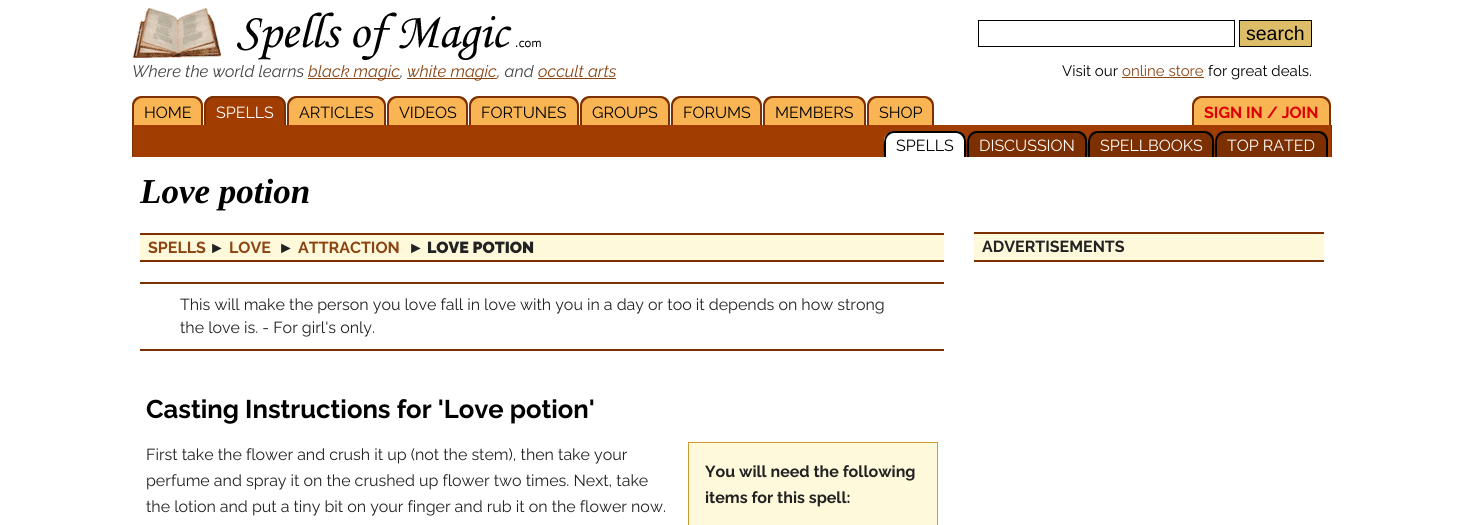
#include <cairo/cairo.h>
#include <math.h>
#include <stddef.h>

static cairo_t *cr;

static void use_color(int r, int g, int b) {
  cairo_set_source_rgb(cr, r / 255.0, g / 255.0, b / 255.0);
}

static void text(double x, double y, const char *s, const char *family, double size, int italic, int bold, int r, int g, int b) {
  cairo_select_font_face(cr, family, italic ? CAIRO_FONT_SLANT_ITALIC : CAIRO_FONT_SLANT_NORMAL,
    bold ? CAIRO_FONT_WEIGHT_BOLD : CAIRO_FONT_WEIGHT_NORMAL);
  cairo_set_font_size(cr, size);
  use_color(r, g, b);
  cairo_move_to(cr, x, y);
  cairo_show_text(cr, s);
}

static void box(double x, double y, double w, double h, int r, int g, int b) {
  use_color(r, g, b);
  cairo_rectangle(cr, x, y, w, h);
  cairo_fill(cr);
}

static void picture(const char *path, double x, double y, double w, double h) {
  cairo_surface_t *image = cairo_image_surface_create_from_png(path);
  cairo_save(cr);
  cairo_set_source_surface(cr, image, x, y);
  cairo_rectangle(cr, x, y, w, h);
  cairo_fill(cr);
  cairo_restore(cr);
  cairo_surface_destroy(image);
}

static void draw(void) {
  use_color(255, 255, 255);
  cairo_paint(cr);
  picture("img_01.png", 133, 8, 408, 52);
  box(308, 78, 92, 1, 139, 69, 19);
  box(407, 78, 90, 1, 139, 69, 19);
  box(538, 78, 78, 1, 139, 69, 19);
  cairo_rectangle(cr, 978.5, 20.5, 256, 26);
  use_color(0, 0, 0);
  cairo_set_line_width(cr, 1);
  cairo_stroke(cr);
  use_color(222, 189, 105);
  cairo_rectangle(cr, 1239.5, 20.5, 72, 26);
  cairo_fill_preserve(cr);
  use_color(0, 0, 0);
  cairo_stroke(cr);
  box(1122, 77, 82, 1, 139, 69, 19);
  use_color(249, 181, 84);
  cairo_new_path(cr);
  cairo_move_to(cr, 142, 96);
  cairo_line_to(cr, 193, 96);
  cairo_curve_to(cr, 198.5, 96, 203, 100.5, 203, 106);
  cairo_line_to(cr, 203, 125);
  cairo_line_to(cr, 132, 125);
  cairo_line_to(cr, 132, 106);
  cairo_curve_to(cr, 132, 100.5, 136.5, 96, 142, 96);
  cairo_close_path(cr);
  cairo_fill(cr);
  use_color(124, 47, 1);
  cairo_set_fill_rule(cr, CAIRO_FILL_RULE_EVEN_ODD);
  cairo_new_path(cr);
  cairo_move_to(cr, 142, 96);
  cairo_line_to(cr, 193, 96);
  cairo_curve_to(cr, 199, 96, 203, 100, 203, 106);
  cairo_line_to(cr, 203, 125);
  cairo_line_to(cr, 132, 125);
  cairo_line_to(cr, 132, 106);
  cairo_curve_to(cr, 132, 100, 136, 96, 142, 96);
  cairo_close_path(cr);
  cairo_move_to(cr, 142, 98);
  cairo_line_to(cr, 193, 98);
  cairo_curve_to(cr, 197, 98, 201, 102, 201, 106);
  cairo_line_to(cr, 201, 125);
  cairo_line_to(cr, 134, 125);
  cairo_line_to(cr, 134, 106);
  cairo_curve_to(cr, 134, 102, 138, 98, 142, 98);
  cairo_close_path(cr);
  cairo_fill(cr);
  use_color(162, 61, 1);
  cairo_new_path(cr);
  cairo_move_to(cr, 214, 96);
  cairo_line_to(cr, 276, 96);
  cairo_curve_to(cr, 281.5, 96, 286, 100.5, 286, 106);
  cairo_line_to(cr, 286, 125);
  cairo_line_to(cr, 204, 125);
  cairo_line_to(cr, 204, 106);
  cairo_curve_to(cr, 204, 100.5, 208.5, 96, 214, 96);
  cairo_close_path(cr);
  cairo_fill(cr);
  use_color(124, 47, 1);
  cairo_new_path(cr);
  cairo_move_to(cr, 214, 96);
  cairo_line_to(cr, 276, 96);
  cairo_curve_to(cr, 282, 96, 286, 100, 286, 106);
  cairo_line_to(cr, 286, 125);
  cairo_line_to(cr, 204, 125);
  cairo_line_to(cr, 204, 106);
  cairo_curve_to(cr, 204, 100, 208, 96, 214, 96);
  cairo_close_path(cr);
  cairo_move_to(cr, 214, 98);
  cairo_line_to(cr, 276, 98);
  cairo_curve_to(cr, 280, 98, 284, 102, 284, 106);
  cairo_line_to(cr, 284, 125);
  cairo_line_to(cr, 206, 125);
  cairo_line_to(cr, 206, 106);
  cairo_curve_to(cr, 206, 102, 210, 98, 214, 98);
  cairo_close_path(cr);
  cairo_fill(cr);
  use_color(249, 181, 84);
  cairo_new_path(cr);
  cairo_move_to(cr, 297, 96);
  cairo_line_to(cr, 376, 96);
  cairo_curve_to(cr, 381.5, 96, 386, 100.5, 386, 106);
  cairo_line_to(cr, 386, 125);
  cairo_line_to(cr, 287, 125);
  cairo_line_to(cr, 287, 106);
  cairo_curve_to(cr, 287, 100.5, 291.5, 96, 297, 96);
  cairo_close_path(cr);
  cairo_fill(cr);
  use_color(124, 47, 1);
  cairo_new_path(cr);
  cairo_move_to(cr, 297, 96);
  cairo_line_to(cr, 376, 96);
  cairo_curve_to(cr, 382, 96, 386, 100, 386, 106);
  cairo_line_to(cr, 386, 125);
  cairo_line_to(cr, 287, 125);
  cairo_line_to(cr, 287, 106);
  cairo_curve_to(cr, 287, 100, 291, 96, 297, 96);
  cairo_close_path(cr);
  cairo_move_to(cr, 297, 98);
  cairo_line_to(cr, 376, 98);
  cairo_curve_to(cr, 380, 98, 384, 102, 384, 106);
  cairo_line_to(cr, 384, 125);
  cairo_line_to(cr, 289, 125);
  cairo_line_to(cr, 289, 106);
  cairo_curve_to(cr, 289, 102, 293, 98, 297, 98);
  cairo_close_path(cr);
  cairo_fill(cr);
  use_color(249, 181, 84);
  cairo_new_path(cr);
  cairo_move_to(cr, 397, 96);
  cairo_line_to(cr, 458, 96);
  cairo_curve_to(cr, 463.5, 96, 468, 100.5, 468, 106);
  cairo_line_to(cr, 468, 125);
  cairo_line_to(cr, 387, 125);
  cairo_line_to(cr, 387, 106);
  cairo_curve_to(cr, 387, 100.5, 391.5, 96, 397, 96);
  cairo_close_path(cr);
  cairo_fill(cr);
  use_color(124, 47, 1);
  cairo_new_path(cr);
  cairo_move_to(cr, 397, 96);
  cairo_line_to(cr, 458, 96);
  cairo_curve_to(cr, 464, 96, 468, 100, 468, 106);
  cairo_line_to(cr, 468, 125);
  cairo_line_to(cr, 387, 125);
  cairo_line_to(cr, 387, 106);
  cairo_curve_to(cr, 387, 100, 391, 96, 397, 96);
  cairo_close_path(cr);
  cairo_move_to(cr, 397, 98);
  cairo_line_to(cr, 458, 98);
  cairo_curve_to(cr, 462, 98, 466, 102, 466, 106);
  cairo_line_to(cr, 466, 125);
  cairo_line_to(cr, 389, 125);
  cairo_line_to(cr, 389, 106);
  cairo_curve_to(cr, 389, 102, 393, 98, 397, 98);
  cairo_close_path(cr);
  cairo_fill(cr);
  use_color(249, 181, 84);
  cairo_new_path(cr);
  cairo_move_to(cr, 479, 96);
  cairo_line_to(cr, 569, 96);
  cairo_curve_to(cr, 574.5, 96, 579, 100.5, 579, 106);
  cairo_line_to(cr, 579, 125);
  cairo_line_to(cr, 469, 125);
  cairo_line_to(cr, 469, 106);
  cairo_curve_to(cr, 469, 100.5, 473.5, 96, 479, 96);
  cairo_close_path(cr);
  cairo_fill(cr);
  use_color(124, 47, 1);
  cairo_new_path(cr);
  cairo_move_to(cr, 479, 96);
  cairo_line_to(cr, 569, 96);
  cairo_curve_to(cr, 575, 96, 579, 100, 579, 106);
  cairo_line_to(cr, 579, 125);
  cairo_line_to(cr, 469, 125);
  cairo_line_to(cr, 469, 106);
  cairo_curve_to(cr, 469, 100, 473, 96, 479, 96);
  cairo_close_path(cr);
  cairo_move_to(cr, 479, 98);
  cairo_line_to(cr, 569, 98);
  cairo_curve_to(cr, 573, 98, 577, 102, 577, 106);
  cairo_line_to(cr, 577, 125);
  cairo_line_to(cr, 471, 125);
  cairo_line_to(cr, 471, 106);
  cairo_curve_to(cr, 471, 102, 475, 98, 479, 98);
  cairo_close_path(cr);
  cairo_fill(cr);
  use_color(249, 181, 84);
  cairo_new_path(cr);
  cairo_move_to(cr, 590, 96);
  cairo_line_to(cr, 660, 96);
  cairo_curve_to(cr, 665.5, 96, 670, 100.5, 670, 106);
  cairo_line_to(cr, 670, 125);
  cairo_line_to(cr, 580, 125);
  cairo_line_to(cr, 580, 106);
  cairo_curve_to(cr, 580, 100.5, 584.5, 96, 590, 96);
  cairo_close_path(cr);
  cairo_fill(cr);
  use_color(124, 47, 1);
  cairo_new_path(cr);
  cairo_move_to(cr, 590, 96);
  cairo_line_to(cr, 660, 96);
  cairo_curve_to(cr, 666, 96, 670, 100, 670, 106);
  cairo_line_to(cr, 670, 125);
  cairo_line_to(cr, 580, 125);
  cairo_line_to(cr, 580, 106);
  cairo_curve_to(cr, 580, 100, 584, 96, 590, 96);
  cairo_close_path(cr);
  cairo_move_to(cr, 590, 98);
  cairo_line_to(cr, 660, 98);
  cairo_curve_to(cr, 664, 98, 668, 102, 668, 106);
  cairo_line_to(cr, 668, 125);
  cairo_line_to(cr, 582, 125);
  cairo_line_to(cr, 582, 106);
  cairo_curve_to(cr, 582, 102, 586, 98, 590, 98);
  cairo_close_path(cr);
  cairo_fill(cr);
  use_color(249, 181, 84);
  cairo_new_path(cr);
  cairo_move_to(cr, 681, 96);
  cairo_line_to(cr, 752, 96);
  cairo_curve_to(cr, 757.5, 96, 762, 100.5, 762, 106);
  cairo_line_to(cr, 762, 125);
  cairo_line_to(cr, 671, 125);
  cairo_line_to(cr, 671, 106);
  cairo_curve_to(cr, 671, 100.5, 675.5, 96, 681, 96);
  cairo_close_path(cr);
  cairo_fill(cr);
  use_color(124, 47, 1);
  cairo_new_path(cr);
  cairo_move_to(cr, 681, 96);
  cairo_line_to(cr, 752, 96);
  cairo_curve_to(cr, 758, 96, 762, 100, 762, 106);
  cairo_line_to(cr, 762, 125);
  cairo_line_to(cr, 671, 125);
  cairo_line_to(cr, 671, 106);
  cairo_curve_to(cr, 671, 100, 675, 96, 681, 96);
  cairo_close_path(cr);
  cairo_move_to(cr, 681, 98);
  cairo_line_to(cr, 752, 98);
  cairo_curve_to(cr, 756, 98, 760, 102, 760, 106);
  cairo_line_to(cr, 760, 125);
  cairo_line_to(cr, 673, 125);
  cairo_line_to(cr, 673, 106);
  cairo_curve_to(cr, 673, 102, 677, 98, 681, 98);
  cairo_close_path(cr);
  cairo_fill(cr);
  use_color(249, 181, 84);
  cairo_new_path(cr);
  cairo_move_to(cr, 773, 96);
  cairo_line_to(cr, 856, 96);
  cairo_curve_to(cr, 861.5, 96, 866, 100.5, 866, 106);
  cairo_line_to(cr, 866, 125);
  cairo_line_to(cr, 763, 125);
  cairo_line_to(cr, 763, 106);
  cairo_curve_to(cr, 763, 100.5, 767.5, 96, 773, 96);
  cairo_close_path(cr);
  cairo_fill(cr);
  use_color(124, 47, 1);
  cairo_new_path(cr);
  cairo_move_to(cr, 773, 96);
  cairo_line_to(cr, 856, 96);
  cairo_curve_to(cr, 862, 96, 866, 100, 866, 106);
  cairo_line_to(cr, 866, 125);
  cairo_line_to(cr, 763, 125);
  cairo_line_to(cr, 763, 106);
  cairo_curve_to(cr, 763, 100, 767, 96, 773, 96);
  cairo_close_path(cr);
  cairo_move_to(cr, 773, 98);
  cairo_line_to(cr, 856, 98);
  cairo_curve_to(cr, 860, 98, 864, 102, 864, 106);
  cairo_line_to(cr, 864, 125);
  cairo_line_to(cr, 765, 125);
  cairo_line_to(cr, 765, 106);
  cairo_curve_to(cr, 765, 102, 769, 98, 773, 98);
  cairo_close_path(cr);
  cairo_fill(cr);
  use_color(249, 181, 84);
  cairo_new_path(cr);
  cairo_move_to(cr, 877, 96);
  cairo_line_to(cr, 924, 96);
  cairo_curve_to(cr, 929.5, 96, 934, 100.5, 934, 106);
  cairo_line_to(cr, 934, 125);
  cairo_line_to(cr, 867, 125);
  cairo_line_to(cr, 867, 106);
  cairo_curve_to(cr, 867, 100.5, 871.5, 96, 877, 96);
  cairo_close_path(cr);
  cairo_fill(cr);
  use_color(124, 47, 1);
  cairo_new_path(cr);
  cairo_move_to(cr, 877, 96);
  cairo_line_to(cr, 924, 96);
  cairo_curve_to(cr, 930, 96, 934, 100, 934, 106);
  cairo_line_to(cr, 934, 125);
  cairo_line_to(cr, 867, 125);
  cairo_line_to(cr, 867, 106);
  cairo_curve_to(cr, 867, 100, 871, 96, 877, 96);
  cairo_close_path(cr);
  cairo_move_to(cr, 877, 98);
  cairo_line_to(cr, 924, 98);
  cairo_curve_to(cr, 928, 98, 932, 102, 932, 106);
  cairo_line_to(cr, 932, 125);
  cairo_line_to(cr, 869, 125);
  cairo_line_to(cr, 869, 106);
  cairo_curve_to(cr, 869, 102, 873, 98, 877, 98);
  cairo_close_path(cr);
  cairo_fill(cr);
  use_color(249, 181, 84);
  cairo_new_path(cr);
  cairo_move_to(cr, 1202, 96);
  cairo_line_to(cr, 1321, 96);
  cairo_curve_to(cr, 1326.5, 96, 1331, 100.5, 1331, 106);
  cairo_line_to(cr, 1331, 125);
  cairo_line_to(cr, 1192, 125);
  cairo_line_to(cr, 1192, 106);
  cairo_curve_to(cr, 1192, 100.5, 1196.5, 96, 1202, 96);
  cairo_close_path(cr);
  cairo_fill(cr);
  use_color(124, 47, 1);
  cairo_new_path(cr);
  cairo_move_to(cr, 1202, 96);
  cairo_line_to(cr, 1321, 96);
  cairo_curve_to(cr, 1327, 96, 1331, 100, 1331, 106);
  cairo_line_to(cr, 1331, 125);
  cairo_line_to(cr, 1192, 125);
  cairo_line_to(cr, 1192, 106);
  cairo_curve_to(cr, 1192, 100, 1196, 96, 1202, 96);
  cairo_close_path(cr);
  cairo_move_to(cr, 1202, 98);
  cairo_line_to(cr, 1321, 98);
  cairo_curve_to(cr, 1325, 98, 1329, 102, 1329, 106);
  cairo_line_to(cr, 1329, 125);
  cairo_line_to(cr, 1194, 125);
  cairo_line_to(cr, 1194, 106);
  cairo_curve_to(cr, 1194, 102, 1198, 98, 1202, 98);
  cairo_close_path(cr);
  cairo_fill(cr);
  box(133, 125, 1198, 32, 162, 61, 1);
  box(1331, 125, 1, 32, 124, 47, 1);
  box(132, 125, 1, 32, 124, 47, 1);
  use_color(255, 255, 255);
  cairo_new_path(cr);
  cairo_move_to(cr, 894, 131);
  cairo_line_to(cr, 956, 131);
  cairo_curve_to(cr, 961.5, 131, 966, 135.5, 966, 141);
  cairo_line_to(cr, 966, 157);
  cairo_line_to(cr, 884, 157);
  cairo_line_to(cr, 884, 141);
  cairo_curve_to(cr, 884, 135.5, 888.5, 131, 894, 131);
  cairo_close_path(cr);
  cairo_fill(cr);
  use_color(0, 0, 0);
  cairo_new_path(cr);
  cairo_move_to(cr, 894, 131);
  cairo_line_to(cr, 956, 131);
  cairo_curve_to(cr, 962, 131, 966, 135, 966, 141);
  cairo_line_to(cr, 966, 157);
  cairo_line_to(cr, 884, 157);
  cairo_curve_to(cr, 884, 149, 881, 131, 894, 131);
  cairo_close_path(cr);
  cairo_move_to(cr, 894, 133);
  cairo_line_to(cr, 956, 133);
  cairo_curve_to(cr, 960, 133, 964, 137, 964, 141);
  cairo_line_to(cr, 964, 157);
  cairo_line_to(cr, 886, 157);
  cairo_line_to(cr, 886, 141);
  cairo_curve_to(cr, 886, 137, 890, 133, 894, 133);
  cairo_close_path(cr);
  cairo_fill(cr);
  use_color(124, 47, 1);
  cairo_new_path(cr);
  cairo_move_to(cr, 977, 131);
  cairo_line_to(cr, 1077, 131);
  cairo_curve_to(cr, 1082.5, 131, 1087, 135.5, 1087, 141);
  cairo_line_to(cr, 1087, 157);
  cairo_line_to(cr, 967, 157);
  cairo_line_to(cr, 967, 141);
  cairo_curve_to(cr, 967, 135.5, 971.5, 131, 977, 131);
  cairo_close_path(cr);
  cairo_fill(cr);
  use_color(0, 0, 0);
  cairo_new_path(cr);
  cairo_move_to(cr, 977, 131);
  cairo_line_to(cr, 1077, 131);
  cairo_curve_to(cr, 1083, 131, 1087, 135, 1087, 141);
  cairo_line_to(cr, 1087, 157);
  cairo_line_to(cr, 967, 157);
  cairo_curve_to(cr, 967, 149, 964, 131, 977, 131);
  cairo_close_path(cr);
  cairo_move_to(cr, 977, 133);
  cairo_line_to(cr, 1077, 133);
  cairo_curve_to(cr, 1081, 133, 1085, 137, 1085, 141);
  cairo_line_to(cr, 1085, 157);
  cairo_line_to(cr, 969, 157);
  cairo_line_to(cr, 969, 141);
  cairo_curve_to(cr, 969, 137, 973, 133, 977, 133);
  cairo_close_path(cr);
  cairo_fill(cr);
  use_color(124, 47, 1);
  cairo_new_path(cr);
  cairo_move_to(cr, 1098, 131);
  cairo_line_to(cr, 1204, 131);
  cairo_curve_to(cr, 1209.5, 131, 1214, 135.5, 1214, 141);
  cairo_line_to(cr, 1214, 157);
  cairo_line_to(cr, 1088, 157);
  cairo_line_to(cr, 1088, 141);
  cairo_curve_to(cr, 1088, 135.5, 1092.5, 131, 1098, 131);
  cairo_close_path(cr);
  cairo_fill(cr);
  use_color(0, 0, 0);
  cairo_new_path(cr);
  cairo_move_to(cr, 1098, 131);
  cairo_line_to(cr, 1204, 131);
  cairo_curve_to(cr, 1210, 131, 1214, 135, 1214, 141);
  cairo_line_to(cr, 1214, 157);
  cairo_line_to(cr, 1088, 157);
  cairo_curve_to(cr, 1088, 149, 1085, 131, 1098, 131);
  cairo_close_path(cr);
  cairo_move_to(cr, 1098, 133);
  cairo_line_to(cr, 1204, 133);
  cairo_curve_to(cr, 1208, 133, 1212, 137, 1212, 141);
  cairo_line_to(cr, 1212, 157);
  cairo_line_to(cr, 1090, 157);
  cairo_line_to(cr, 1090, 141);
  cairo_curve_to(cr, 1090, 137, 1094, 133, 1098, 133);
  cairo_close_path(cr);
  cairo_fill(cr);
  use_color(124, 47, 1);
  cairo_new_path(cr);
  cairo_move_to(cr, 1225, 131);
  cairo_line_to(cr, 1318, 131);
  cairo_curve_to(cr, 1323.5, 131, 1328, 135.5, 1328, 141);
  cairo_line_to(cr, 1328, 157);
  cairo_line_to(cr, 1215, 157);
  cairo_line_to(cr, 1215, 141);
  cairo_curve_to(cr, 1215, 135.5, 1219.5, 131, 1225, 131);
  cairo_close_path(cr);
  cairo_fill(cr);
  use_color(0, 0, 0);
  cairo_new_path(cr);
  cairo_move_to(cr, 1225, 131);
  cairo_line_to(cr, 1318, 131);
  cairo_curve_to(cr, 1324, 131, 1328, 135, 1328, 141);
  cairo_line_to(cr, 1328, 157);
  cairo_line_to(cr, 1215, 157);
  cairo_curve_to(cr, 1215, 149, 1212, 131, 1225, 131);
  cairo_close_path(cr);
  cairo_move_to(cr, 1225, 133);
  cairo_line_to(cr, 1318, 133);
  cairo_curve_to(cr, 1322, 133, 1326, 137, 1326, 141);
  cairo_line_to(cr, 1326, 157);
  cairo_line_to(cr, 1217, 157);
  cairo_line_to(cr, 1217, 141);
  cairo_curve_to(cr, 1217, 137, 1221, 133, 1225, 133);
  cairo_close_path(cr);
  cairo_fill(cr);
  box(140, 235, 804, 25, 255, 249, 219);
  box(140, 233, 804, 2, 124, 47, 1);
  box(140, 260, 804, 2, 124, 47, 1);
  box(140, 282, 804, 2, 124, 47, 1);
  box(140, 349, 804, 2, 124, 47, 1);
  use_color(255, 249, 219);
  cairo_rectangle(cr, 688.5, 442.5, 249, 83);
  cairo_fill_preserve(cr);
  use_color(204, 153, 51);
  cairo_stroke(cr);
  box(974, 234, 350, 26, 255, 249, 219);
  box(974, 232, 350, 2, 124, 47, 1);
  box(974, 260, 350, 2, 124, 47, 1);
  text(132, 77, "Where the world learns", "Raleway", 16.5, 1, 0, 68, 68, 68);
  text(308, 77, "black magic", "Raleway", 16.5, 1, 0, 139, 69, 19);
  text(400, 77, ",", "Raleway", 16.5, 1, 0, 68, 68, 68);
  text(407, 77, "white magic", "Raleway", 16.5, 1, 0, 139, 69, 19);
  text(497, 77, ", and", "Raleway", 16.5, 1, 0, 68, 68, 68);
  text(538, 77, "occult arts", "Raleway", 16.5, 1, 0, 139, 69, 19);
  text(1246, 40, "search", "Liberation Sans", 19.5, 0, 0, 0, 0, 0);
  text(1062, 76, "Visit our", "Raleway", 15, 0, 0, 0, 0, 0);
  text(1122, 76, "online store", "Raleway", 15, 0, 0, 139, 69, 19);
  text(1208, 76, "for great deals.", "Raleway", 15, 0, 0, 0, 0, 0);
  text(144, 118, "HOME", "Raleway", 16, 0, 0, 0, 0, 0);
  text(216, 118, "SPELLS", "Raleway", 16, 0, 0, 255, 255, 255);
  text(299, 118, "ARTICLES", "Raleway", 16, 0, 0, 0, 0, 0);
  text(399, 118, "VIDEOS", "Raleway", 16, 0, 0, 0, 0, 0);
  text(481, 118, "FORTUNES", "Raleway", 16, 0, 0, 0, 0, 0);
  text(592, 118, "GROUPS", "Raleway", 16, 0, 0, 0, 0, 0);
  text(683, 118, "FORUMS", "Raleway", 16, 0, 0, 0, 0, 0);
  text(775, 118, "MEMBERS", "Raleway", 16, 0, 0, 0, 0, 0);
  text(879, 118, "SHOP", "Raleway", 16, 0, 0, 0, 0, 0);
  text(1204, 118, "SIGN IN / JOIN", "Raleway", 16, 0, 1, 221, 0, 0);
  text(896, 151, "SPELLS", "Raleway", 16, 0, 0, 0, 0, 0);
  text(979, 151, "DISCUSSION", "Raleway", 16, 0, 0, 255, 255, 255);
  text(1100, 151, "SPELLBOOKS", "Raleway", 16, 0, 0, 255, 255, 255);
  text(1227, 151, "TOP RATED", "Raleway", 16, 0, 0, 255, 255, 255);
  text(140, 203, "Love potion", "Liberation Serif", 35, 1, 1, 0, 0, 0);
  text(148, 253, "SPELLS", "Raleway", 16, 0, 1, 139, 69, 19);
  text(209, 253, "►", "Liberation Sans", 16, 0, 1, 34, 34, 34);
  text(229, 253, "LOVE", "Raleway", 16, 0, 1, 139, 69, 19);
  text(278, 253, "►", "Liberation Sans", 16, 0, 1, 34, 34, 34);
  text(298, 253, "ATTRACTION", "Raleway", 16, 0, 1, 139, 69, 19);
  text(408, 253, "►", "Liberation Sans", 16, 0, 1, 34, 34, 34);
  text(427, 253, "LOVE POTION", "Raleway Black", 16, 0, 0, 34, 34, 34);
  text(180, 310, "This will make the person you love fall in love with you in a day or too it depends on how strong", "Raleway", 16, 0, 0, 34, 34, 34);
  text(180, 333, "the love is. - For girl's only.", "Raleway", 16, 0, 0, 34, 34, 34);
  text(146, 418, "Casting Instructions for 'Love potion'", "Raleway", 25.6, 0, 1, 0, 0, 0);
  text(146, 460, "First take the flower and crush it up (not the stem), then take your", "Raleway", 16, 0, 0, 34, 34, 34);
  text(146, 486, "perfume and spray it on the crushed up flower two times. Next, take", "Raleway", 16, 0, 0, 34, 34, 34);
  text(146, 512, "the lotion and put a tiny bit on your finger and rub it on the flower now.", "Raleway", 16, 0, 0, 34, 34, 34);
  text(705, 477, "You will need the following", "Raleway", 16, 0, 1, 34, 34, 34);
  text(705, 503, "items for this spell:", "Raleway", 16, 0, 1, 34, 34, 34);
  text(982, 252, "ADVERTISEMENTS", "Raleway", 16, 0, 1, 34, 34, 34);
}

int main(void) {
  cairo_surface_t *surface = cairo_image_surface_create(CAIRO_FORMAT_RGB24, 1463, 525);
  cr = cairo_create(surface);
  cairo_font_options_t *options = cairo_font_options_create();
  cairo_font_options_set_hint_metrics(options, CAIRO_HINT_METRICS_OFF);
  cairo_font_options_set_hint_style(options, CAIRO_HINT_STYLE_NONE);
  cairo_set_font_options(cr, options);
  cairo_set_miter_limit(cr, 4);
  draw();
  cairo_surface_write_to_png(surface, "out.png");
  cairo_font_options_destroy(options);
  cairo_destroy(cr);
  cairo_surface_destroy(surface);
  return 0;
}
